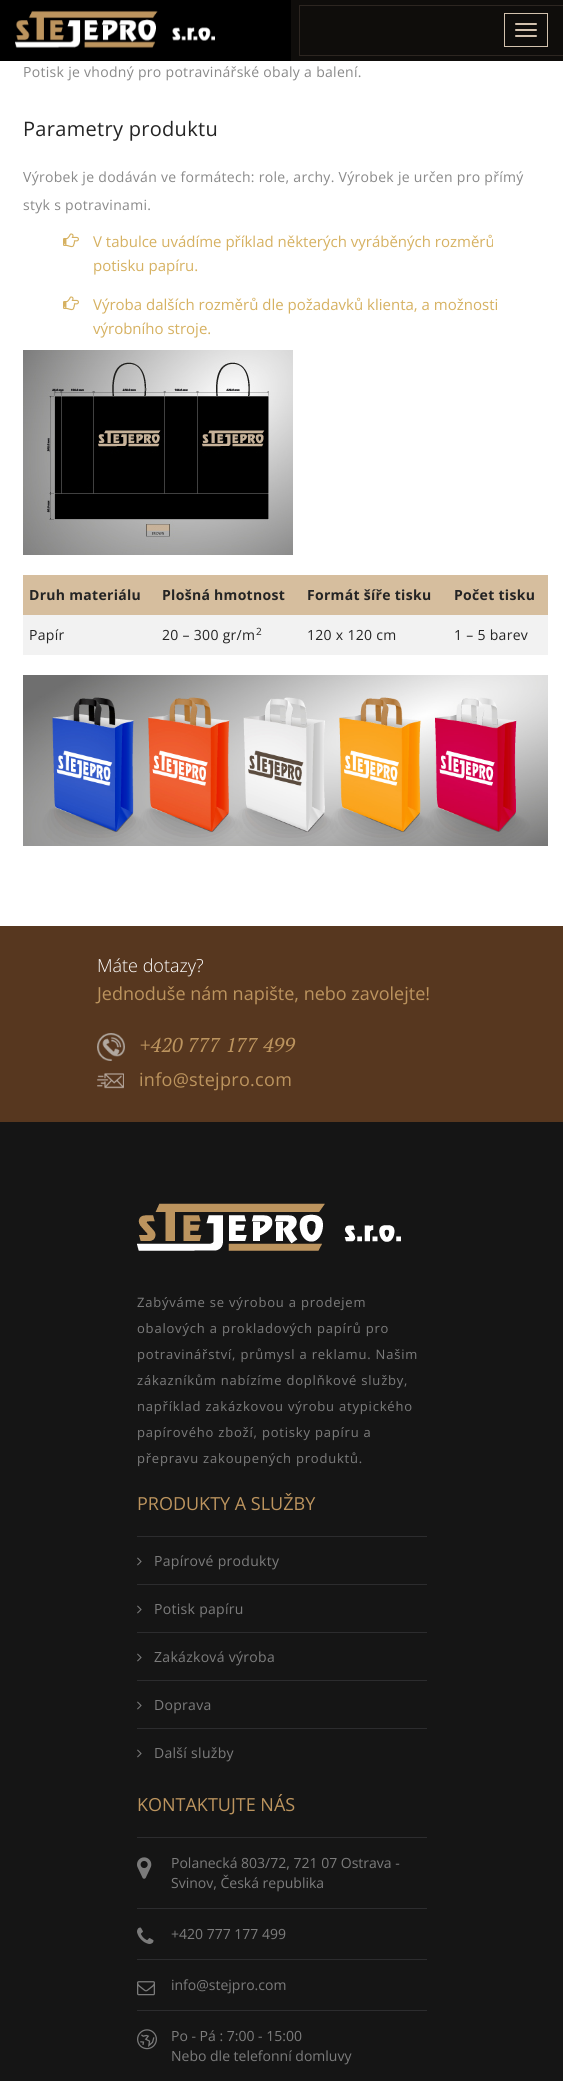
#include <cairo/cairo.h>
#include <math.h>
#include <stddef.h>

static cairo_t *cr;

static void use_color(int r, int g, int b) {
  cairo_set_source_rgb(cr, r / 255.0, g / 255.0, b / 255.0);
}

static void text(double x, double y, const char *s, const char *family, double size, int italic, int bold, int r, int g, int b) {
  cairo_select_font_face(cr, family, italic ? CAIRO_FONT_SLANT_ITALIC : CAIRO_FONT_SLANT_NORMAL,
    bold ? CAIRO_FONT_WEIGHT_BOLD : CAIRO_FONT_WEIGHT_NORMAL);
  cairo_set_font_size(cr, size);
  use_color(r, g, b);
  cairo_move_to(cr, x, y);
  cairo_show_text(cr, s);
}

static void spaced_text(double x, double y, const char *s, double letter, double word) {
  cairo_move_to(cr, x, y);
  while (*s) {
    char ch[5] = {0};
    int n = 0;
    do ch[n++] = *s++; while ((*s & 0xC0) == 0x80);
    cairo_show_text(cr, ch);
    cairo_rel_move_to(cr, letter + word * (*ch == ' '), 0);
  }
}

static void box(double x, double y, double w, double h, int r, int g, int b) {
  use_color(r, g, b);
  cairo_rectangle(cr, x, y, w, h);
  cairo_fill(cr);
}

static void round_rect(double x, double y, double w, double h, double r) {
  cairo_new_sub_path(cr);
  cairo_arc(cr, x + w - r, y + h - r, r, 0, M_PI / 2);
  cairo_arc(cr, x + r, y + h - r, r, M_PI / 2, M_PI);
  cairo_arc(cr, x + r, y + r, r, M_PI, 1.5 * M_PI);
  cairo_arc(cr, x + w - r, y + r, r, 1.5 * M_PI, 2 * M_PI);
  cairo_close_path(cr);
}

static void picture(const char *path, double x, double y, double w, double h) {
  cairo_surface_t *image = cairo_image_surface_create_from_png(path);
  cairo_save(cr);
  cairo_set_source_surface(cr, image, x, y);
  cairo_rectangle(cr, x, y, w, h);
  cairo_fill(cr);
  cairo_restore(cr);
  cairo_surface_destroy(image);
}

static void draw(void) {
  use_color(255, 255, 255);
  cairo_paint(cr);
  box(0, 0, 291, 61, 0, 0, 0);
  picture("img_01.png", 15, 10, 200, 38);
  box(291, 0, 272, 61, 15, 13, 11);
  box(299, 5, 264, 1, 45, 38, 33);
  box(299, 55, 264, 1, 45, 38, 33);
  box(299, 5, 1, 51, 45, 38, 33);
  cairo_rectangle(cr, 504.5, 13.5, 43, 33);
  use_color(211, 194, 174);
  cairo_set_line_width(cr, 1);
  cairo_stroke(cr);
  round_rect(515, 23, 22, 2, 1);
  cairo_fill(cr);
  round_rect(515, 29, 22, 2, 1);
  cairo_fill(cr);
  round_rect(515, 35, 22, 2, 1);
  cairo_fill(cr);
  picture("img_02.png", 63, 233, 16, 15);
  picture("img_02.png", 63, 296, 16, 15);
  picture("img_03.png", 23, 350, 270, 205);
  box(23, 575, 525, 40, 214, 190, 158);
  box(23, 615, 525, 40, 242, 242, 242);
  picture("img_04.png", 23, 675, 525, 171);
  box(0, 926, 563, 196, 87, 55, 31);
  picture("img_05.png", 97, 1033, 28, 28);
  picture("img_06.png", 97, 1073, 27, 16);
  box(0, 1122, 563, 959, 21, 21, 21);
  picture("img_07.png", 137, 1203, 264, 48);
  box(137, 1536, 290, 1, 44, 44, 46);
  picture("img_08.png", 137, 1557, 5, 9);
  box(137, 1584, 290, 1, 44, 44, 46);
  picture("img_08.png", 137, 1605, 5, 9);
  box(137, 1632, 290, 1, 44, 44, 46);
  picture("img_08.png", 137, 1653, 5, 9);
  box(137, 1680, 290, 1, 44, 44, 46);
  picture("img_08.png", 137, 1701, 5, 9);
  box(137, 1728, 290, 1, 44, 44, 46);
  picture("img_08.png", 137, 1749, 5, 9);
  box(137, 1837, 290, 1, 44, 44, 46);
  picture("img_09.png", 137, 1857, 15, 22);
  box(137, 1908, 290, 1, 44, 44, 46);
  picture("img_10.png", 137, 1927, 17, 17);
  box(137, 1959, 290, 1, 44, 44, 46);
  picture("img_11.png", 137, 1981, 18, 15);
  box(137, 2010, 290, 1, 44, 44, 46);
  picture("img_12.png", 137, 2029, 20, 21);
  cairo_select_font_face(cr, "Open Sans", CAIRO_FONT_SLANT_NORMAL, CAIRO_FONT_WEIGHT_NORMAL);
  cairo_set_font_size(cr, 14);
  use_color(137, 137, 137);
  spaced_text(23, 77, "Potisk je vhodný pro potravinářské obaly a balení.", 0.3, 0);
  cairo_set_font_size(cr, 20);
  use_color(36, 36, 36);
  spaced_text(23, 136, "Parametry produktu", 0.3, 0);
  cairo_set_font_size(cr, 14);
  use_color(137, 137, 137);
  spaced_text(23, 182, "Výrobek je dodáván ve formátech: role, archy. Výrobek je určen pro přímý", 0.3, 0);
  spaced_text(23, 210, "styk s potravinami.", 0.3, 0);
  text(93, 247, "V tabulce uvádíme příklad některých vyráběných rozměrů", "Open Sans", 15, 0, 0, 214, 177, 97);
  text(93, 271, "potisku papíru.", "Open Sans", 15, 0, 0, 214, 177, 97);
  text(93, 310, "Výroba dalších rozměrů dle požadavků klienta, a možnosti", "Open Sans", 15, 0, 0, 214, 177, 97);
  text(93, 334, "výrobního stroje.", "Open Sans", 15, 0, 0, 214, 177, 97);
  cairo_select_font_face(cr, "Open Sans", CAIRO_FONT_SLANT_NORMAL, CAIRO_FONT_WEIGHT_BOLD);
  cairo_set_font_size(cr, 14);
  use_color(36, 36, 36);
  spaced_text(29, 600, "Druh materiálu", 0.3, 0);
  spaced_text(162, 600, "Plošná hmotnost", 0.3, 0);
  spaced_text(307, 600, "Formát šíře tisku", 0.3, 0);
  spaced_text(454, 600, "Počet tisku", 0.3, 0);
  cairo_select_font_face(cr, "Open Sans", CAIRO_FONT_SLANT_NORMAL, CAIRO_FONT_WEIGHT_NORMAL);
  spaced_text(29, 640, "Papír", 0.3, 0);
  spaced_text(162, 640, "20 – 300 gr/m", 0.3, 0);
  cairo_set_font_size(cr, 10);
  spaced_text(256, 635, "2", 0.3, 0);
  cairo_set_font_size(cr, 14);
  spaced_text(307, 640, "120 x 120 cm", 0.3, 0);
  spaced_text(454, 640, "1 – 5 barev", 0.3, 0);
  text(97, 972, "Máte dotazy?", "Open Sans Light", 18, 0, 0, 255, 255, 255);
  text(97, 1000, "Jednoduše nám napište, nebo zavolejte!", "Open Sans", 18, 0, 0, 188, 148, 94);
  cairo_select_font_face(cr, "PT Serif", CAIRO_FONT_SLANT_ITALIC, CAIRO_FONT_WEIGHT_NORMAL);
  cairo_set_font_size(cr, 20);
  spaced_text(140, 1052, "+420 777 177 499", 0.3, 0);
  cairo_select_font_face(cr, "Open Sans", CAIRO_FONT_SLANT_NORMAL, CAIRO_FONT_WEIGHT_NORMAL);
  cairo_set_font_size(cr, 18);
  spaced_text(139, 1086, "info@stejpro.com", 0.3, 0);
  cairo_set_font_size(cr, 13);
  use_color(124, 124, 124);
  spaced_text(137, 1307, "Zabýváme se výrobou a prodejem", 0.8, 0);
  spaced_text(137, 1333, "obalových a prokladových papírů pro", 0.8, 0);
  spaced_text(137, 1359, "potravinářství, průmysl a reklamu. Našim", 0.8, 0);
  spaced_text(137, 1385, "zákazníkům nabízíme doplňkové služby,", 0.8, 0);
  spaced_text(137, 1411, "například zakázkovou výrobu atypického", 0.8, 0);
  spaced_text(137, 1437, "papírového zboží, potisky papíru a", 0.8, 0);
  spaced_text(137, 1463, "přepravu zakoupených produktů.", 0.8, 0);
  text(137, 1510, "PRODUKTY A SLUŽBY", "Open Sans", 18, 0, 0, 188, 148, 94);
  cairo_set_font_size(cr, 14);
  use_color(124, 124, 124);
  spaced_text(154, 1566, "Papírové produkty", 0.3, 0);
  spaced_text(154, 1614, "Potisk papíru", 0.3, 0);
  spaced_text(154, 1662, "Zakázková výroba", 0.3, 0);
  spaced_text(154, 1710, "Doprava", 0.3, 0);
  spaced_text(154, 1758, "Další služby", 0.3, 0);
  text(137, 1811, "KONTAKTUJTE NÁS", "Open Sans", 18, 0, 0, 188, 148, 94);
  text(171, 1868, "Polanecká 803/72, 721 07 Ostrava -", "Open Sans", 14, 0, 0, 124, 124, 124);
  text(171, 1888, "Svinov, Česká republika", "Open Sans", 14, 0, 0, 124, 124, 124);
  text(171, 1939, "+420 777 177 499", "Open Sans", 14, 0, 0, 124, 124, 124);
  text(171, 1990, "info@stejpro.com", "Open Sans", 14, 0, 0, 124, 124, 124);
  text(171, 2041, "Po - Pá : 7:00 - 15:00", "Open Sans", 14, 0, 0, 124, 124, 124);
  text(171, 2061, "Nebo dle telefonní domluvy", "Open Sans", 14, 0, 0, 124, 124, 124);
}

int main(void) {
  cairo_surface_t *surface = cairo_image_surface_create(CAIRO_FORMAT_RGB24, 563, 2081);
  cr = cairo_create(surface);
  cairo_font_options_t *options = cairo_font_options_create();
  cairo_font_options_set_hint_metrics(options, CAIRO_HINT_METRICS_OFF);
  cairo_font_options_set_hint_style(options, CAIRO_HINT_STYLE_NONE);
  cairo_set_font_options(cr, options);
  cairo_set_miter_limit(cr, 4);
  draw();
  cairo_surface_write_to_png(surface, "out.png");
  cairo_font_options_destroy(options);
  cairo_destroy(cr);
  cairo_surface_destroy(surface);
  return 0;
}
